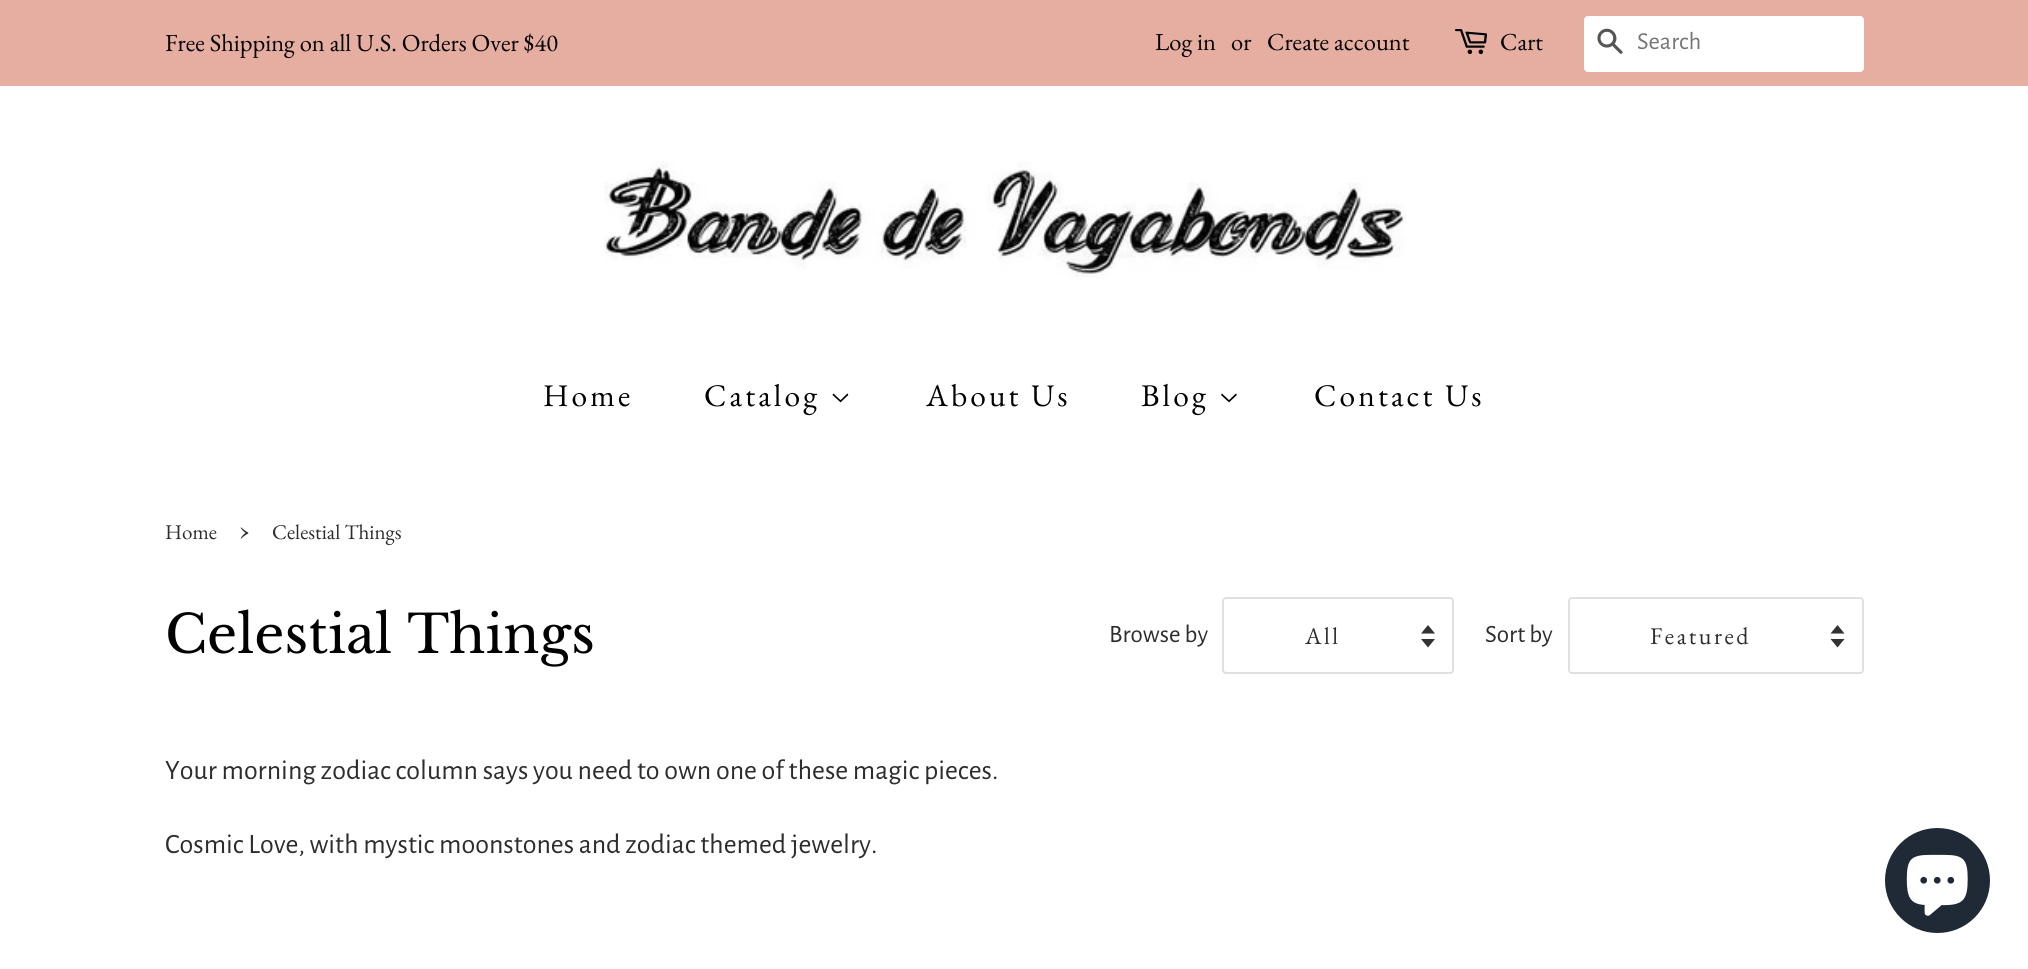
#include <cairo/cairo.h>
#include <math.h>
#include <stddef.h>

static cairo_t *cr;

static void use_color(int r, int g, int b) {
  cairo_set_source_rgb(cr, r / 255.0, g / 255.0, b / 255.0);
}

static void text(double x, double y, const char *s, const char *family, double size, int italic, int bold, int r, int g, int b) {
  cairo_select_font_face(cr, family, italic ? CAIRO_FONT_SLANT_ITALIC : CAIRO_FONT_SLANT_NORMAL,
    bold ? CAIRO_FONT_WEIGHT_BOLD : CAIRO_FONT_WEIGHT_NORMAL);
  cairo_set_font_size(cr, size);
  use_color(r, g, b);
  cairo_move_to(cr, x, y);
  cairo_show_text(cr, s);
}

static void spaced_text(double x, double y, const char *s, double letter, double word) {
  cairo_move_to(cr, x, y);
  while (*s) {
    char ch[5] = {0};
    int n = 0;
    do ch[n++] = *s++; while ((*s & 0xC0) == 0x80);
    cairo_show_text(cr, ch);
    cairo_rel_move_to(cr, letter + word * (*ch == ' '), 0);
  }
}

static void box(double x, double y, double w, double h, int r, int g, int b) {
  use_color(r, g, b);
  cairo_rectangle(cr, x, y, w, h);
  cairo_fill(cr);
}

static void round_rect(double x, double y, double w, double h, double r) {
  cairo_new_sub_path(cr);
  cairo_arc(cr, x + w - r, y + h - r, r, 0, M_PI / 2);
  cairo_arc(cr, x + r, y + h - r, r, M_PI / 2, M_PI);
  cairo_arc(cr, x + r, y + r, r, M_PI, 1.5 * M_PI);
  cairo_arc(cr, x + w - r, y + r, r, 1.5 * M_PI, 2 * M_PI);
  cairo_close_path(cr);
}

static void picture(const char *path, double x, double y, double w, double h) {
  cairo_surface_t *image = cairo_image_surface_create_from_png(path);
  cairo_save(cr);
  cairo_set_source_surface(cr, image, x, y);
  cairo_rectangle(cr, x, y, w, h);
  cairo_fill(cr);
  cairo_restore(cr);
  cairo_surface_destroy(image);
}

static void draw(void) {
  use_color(255, 255, 255);
  cairo_paint(cr);
  box(0, 0, 2028, 86, 230, 174, 161);
  picture("img_01.png", 1455, 29, 32, 26);
  use_color(255, 255, 255);
  round_rect(1584, 16, 280, 56, 4);
  cairo_fill(cr);
  picture("img_02.png", 1597, 28, 26, 26);
  picture("img_03.png", 604, 161, 803, 117);
  picture("img_04.png", 832, 393, 17, 10);
  picture("img_05.png", 1221, 393, 16, 10);
  use_color(51, 51, 51);
  cairo_new_path(cr);
  cairo_move_to(cr, 1421, 639);
  cairo_line_to(cr, 1428, 647.5);
  cairo_line_to(cr, 1435, 639);
  cairo_close_path(cr);
  cairo_move_to(cr, 1428, 625);
  cairo_line_to(cr, 1421, 633.5);
  cairo_line_to(cr, 1435, 633.5);
  cairo_close_path(cr);
  cairo_fill(cr);
  round_rect(1223, 598, 230, 75, 3);
  use_color(224, 224, 224);
  cairo_stroke(cr);
  use_color(51, 51, 51);
  cairo_new_path(cr);
  cairo_move_to(cr, 1830.5, 639);
  cairo_line_to(cr, 1837.5, 647.5);
  cairo_line_to(cr, 1844.5, 639);
  cairo_close_path(cr);
  cairo_move_to(cr, 1837.5, 625);
  cairo_line_to(cr, 1830.5, 633.5);
  cairo_line_to(cr, 1844.5, 633.5);
  cairo_close_path(cr);
  cairo_fill(cr);
  round_rect(1569, 598, 294, 75, 3);
  use_color(224, 224, 224);
  cairo_stroke(cr);
  use_color(32, 42, 54);
  cairo_arc(cr, 1937.5, 880.5, 52.5, 0, 2 * M_PI);
  cairo_fill(cr);
  picture("img_06.png", 1906, 854, 62, 62);
  text(165, 51, "Free Shipping on all U.S. Orders Over $40", "EB Garamond", 24.5, 0, 0, 0, 0, 0);
  text(1155, 50, "Log in", "EB Garamond", 24.5, 0, 0, 0, 0, 0);
  text(1231, 50, "or", "EB Garamond", 24.5, 0, 0, 0, 0, 0);
  text(1267, 50, "Create account", "EB Garamond", 24.5, 0, 0, 0, 0, 0);
  text(1500, 50, "Cart", "EB Garamond", 24.5, 0, 0, 0, 0, 0);
  text(1637, 49, "Search", "Alegreya Sans", 24.5, 0, 0, 117, 117, 117);
  cairo_select_font_face(cr, "EB Garamond", CAIRO_FONT_SLANT_NORMAL, CAIRO_FONT_WEIGHT_NORMAL);
  cairo_set_font_size(cr, 31.5);
  use_color(0, 0, 0);
  spaced_text(543, 406, "Home", 3.1, 0);
  spaced_text(704, 406, "Catalog", 3.1, 0);
  spaced_text(926, 406, "About Us", 3.1, 0);
  spaced_text(1141, 406, "Blog", 3.1, 0);
  spaced_text(1314, 406, "Contact Us", 3.1, 0);
  text(165, 539, "Home", "EB Garamond", 21, 0, 0, 45, 45, 45);
  text(239, 539, "›", "EB Garamond", 29, 0, 0, 45, 45, 45);
  text(272, 539, "Celestial Things", "EB Garamond", 21, 0, 0, 45, 45, 45);
  text(165, 653, "Celestial Things", "Libre Baskerville", 52.5, 0, 0, 0, 0, 0);
  text(1109, 642, "Browse by", "Alegreya Sans", 25, 0, 0, 45, 45, 45);
  cairo_select_font_face(cr, "EB Garamond", CAIRO_FONT_SLANT_NORMAL, CAIRO_FONT_WEIGHT_NORMAL);
  cairo_set_font_size(cr, 24);
  spaced_text(1305, 644, "All", 2.5, 0);
  text(1485, 642, "Sort by", "Alegreya Sans", 25, 0, 0, 45, 45, 45);
  cairo_select_font_face(cr, "EB Garamond", CAIRO_FONT_SLANT_NORMAL, CAIRO_FONT_WEIGHT_NORMAL);
  cairo_set_font_size(cr, 24);
  spaced_text(1650, 644, "Featured", 2.5, 0);
  text(165, 779, "Your morning zodiac column says you need to own one of these magic pieces.", "Alegreya Sans", 28, 0, 0, 45, 45, 45);
  text(165, 853, "Cosmic Love, with mystic moonstones and zodiac themed jewelry.", "Alegreya Sans", 28, 0, 0, 45, 45, 45);
}

int main(void) {
  cairo_surface_t *surface = cairo_image_surface_create(CAIRO_FORMAT_RGB24, 2028, 969);
  cr = cairo_create(surface);
  cairo_font_options_t *options = cairo_font_options_create();
  cairo_font_options_set_hint_metrics(options, CAIRO_HINT_METRICS_OFF);
  cairo_font_options_set_hint_style(options, CAIRO_HINT_STYLE_NONE);
  cairo_set_font_options(cr, options);
  cairo_set_miter_limit(cr, 4);
  draw();
  cairo_surface_write_to_png(surface, "out.png");
  cairo_font_options_destroy(options);
  cairo_destroy(cr);
  cairo_surface_destroy(surface);
  return 0;
}
